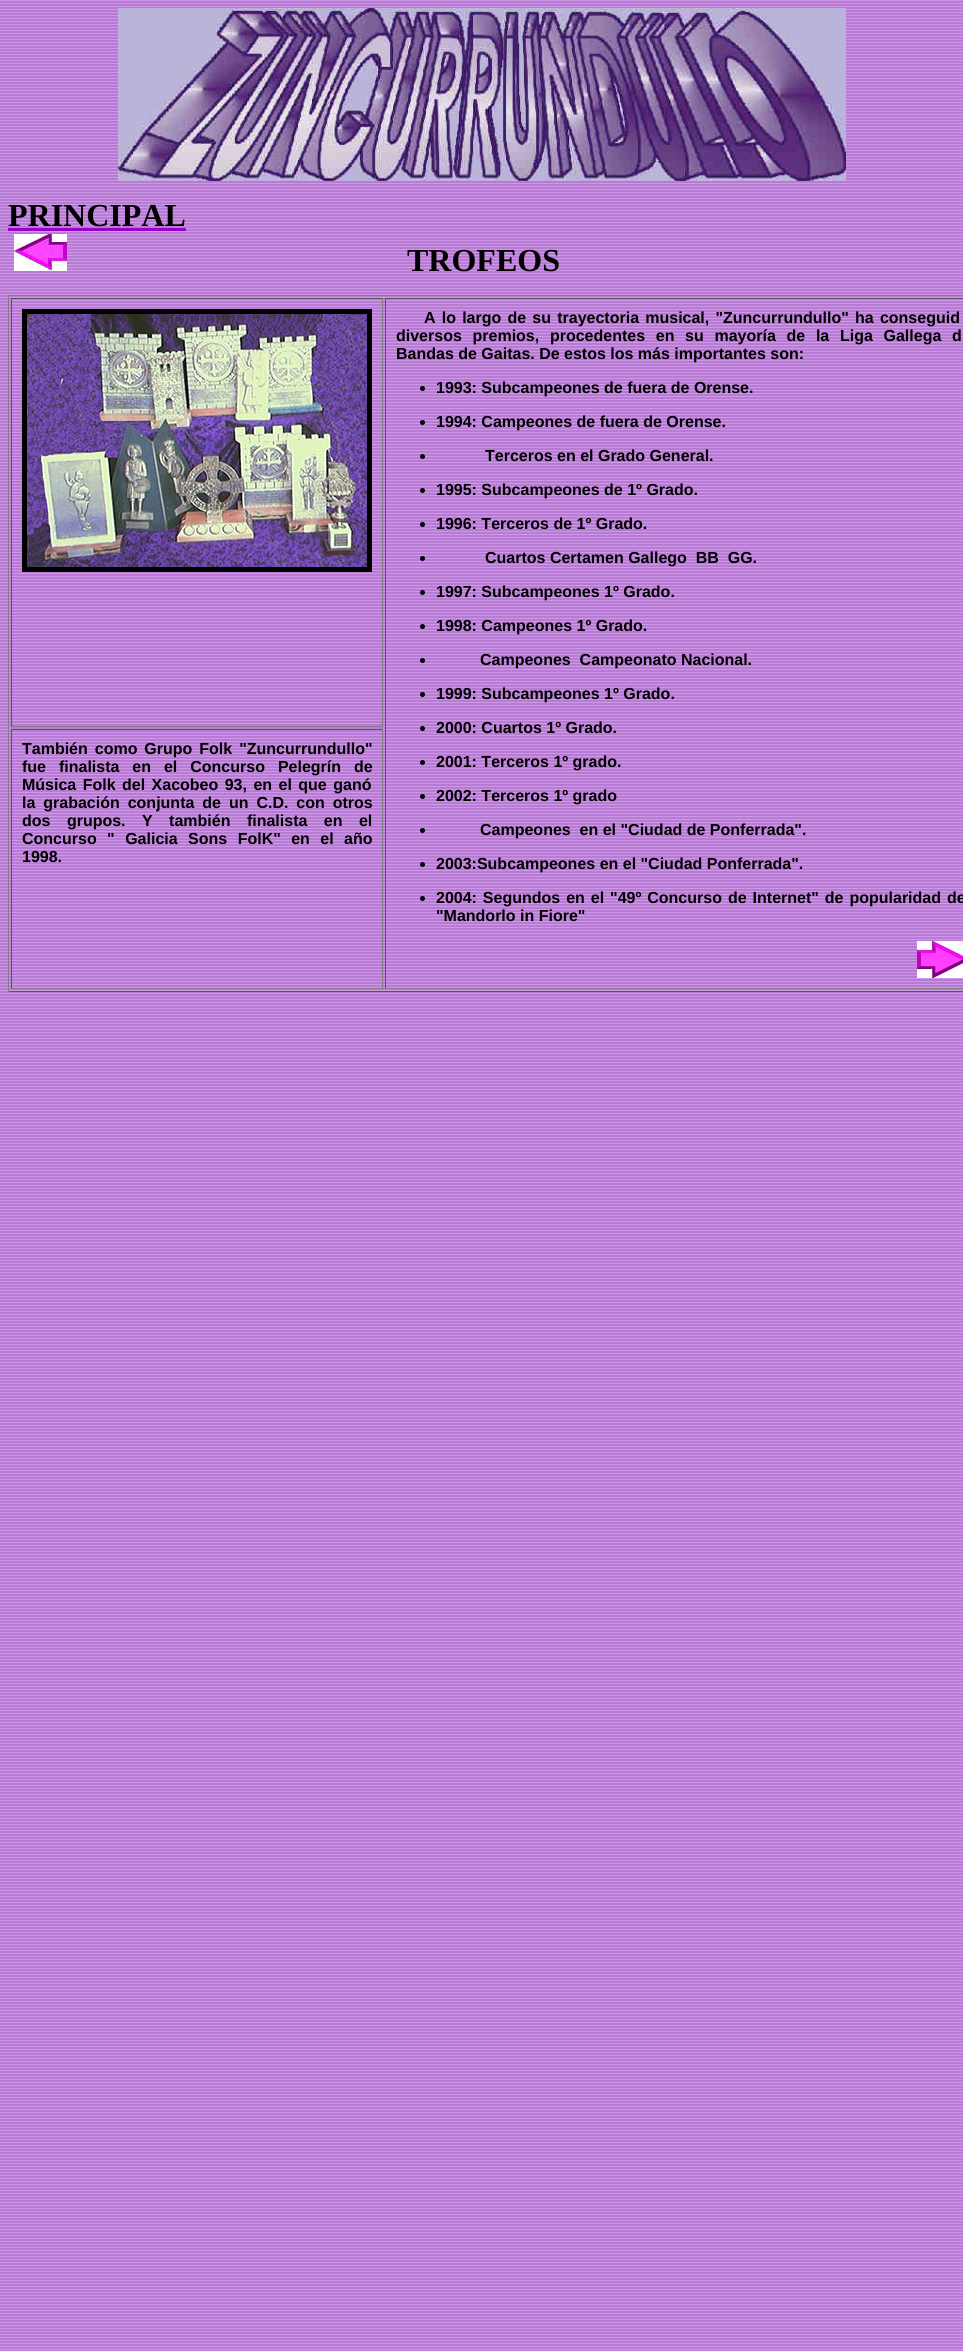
#include <cairo/cairo.h>
#include <math.h>
#include <stddef.h>

static cairo_t *cr;

static void use_color(int r, int g, int b) {
  cairo_set_source_rgb(cr, r / 255.0, g / 255.0, b / 255.0);
}

static void text(double x, double y, const char *s, const char *family, double size, int italic, int bold, int r, int g, int b) {
  cairo_select_font_face(cr, family, italic ? CAIRO_FONT_SLANT_ITALIC : CAIRO_FONT_SLANT_NORMAL,
    bold ? CAIRO_FONT_WEIGHT_BOLD : CAIRO_FONT_WEIGHT_NORMAL);
  cairo_set_font_size(cr, size);
  use_color(r, g, b);
  cairo_move_to(cr, x, y);
  cairo_show_text(cr, s);
}

static void spaced_text(double x, double y, const char *s, double letter, double word) {
  cairo_move_to(cr, x, y);
  while (*s) {
    char ch[5] = {0};
    int n = 0;
    do ch[n++] = *s++; while ((*s & 0xC0) == 0x80);
    cairo_show_text(cr, ch);
    cairo_rel_move_to(cr, letter + word * (*ch == ' '), 0);
  }
}

static void box(double x, double y, double w, double h, int r, int g, int b) {
  use_color(r, g, b);
  cairo_rectangle(cr, x, y, w, h);
  cairo_fill(cr);
}

static void picture(const char *path, double x, double y, double w, double h) {
  cairo_surface_t *image = cairo_image_surface_create_from_png(path);
  cairo_save(cr);
  cairo_set_source_surface(cr, image, x, y);
  cairo_rectangle(cr, x, y, w, h);
  cairo_fill(cr);
  cairo_restore(cr);
  cairo_surface_destroy(image);
}

static void draw(void) {
  use_color(255, 255, 255);
  cairo_paint(cr);
  picture("img_01.png", 0, 0, 963, 2351);
  picture("img_02.png", 118, 8, 728, 173);
  box(8, 228, 178, 3, 153, 0, 204);
  picture("img_03.png", 14, 234, 53, 37);
  box(8, 295, 955, 1, 128, 128, 128);
  box(8, 991, 955, 1, 85, 85, 85);
  box(8, 295, 1, 697, 128, 128, 128);
  box(11, 729, 372, 1, 85, 85, 85);
  box(382, 729, 1, 260, 128, 128, 128);
  box(11, 988, 372, 1, 128, 128, 128);
  box(11, 729, 1, 260, 85, 85, 85);
  box(11, 298, 372, 1, 85, 85, 85);
  box(382, 298, 1, 429, 128, 128, 128);
  box(11, 726, 372, 1, 128, 128, 128);
  box(11, 298, 1, 429, 85, 85, 85);
  cairo_rectangle(cr, 24.5, 311.5, 345, 258);
  use_color(0, 0, 0);
  cairo_set_line_width(cr, 5);
  cairo_stroke(cr);
  picture("img_04.png", 27, 314, 340, 253);
  box(385, 298, 578, 1, 85, 85, 85);
  box(385, 988, 578, 1, 128, 128, 128);
  box(385, 298, 1, 691, 85, 85, 85);
  use_color(0, 0, 0);
  cairo_arc(cr, 422.5, 388.5, 2.5, 0, 2 * M_PI);
  cairo_fill(cr);
  cairo_arc(cr, 422.5, 422.5, 2.5, 0, 2 * M_PI);
  cairo_fill(cr);
  cairo_arc(cr, 422.5, 456.5, 2.5, 0, 2 * M_PI);
  cairo_fill(cr);
  cairo_arc(cr, 422.5, 490.5, 2.5, 0, 2 * M_PI);
  cairo_fill(cr);
  cairo_arc(cr, 422.5, 524.5, 2.5, 0, 2 * M_PI);
  cairo_fill(cr);
  cairo_arc(cr, 422.5, 558.5, 2.5, 0, 2 * M_PI);
  cairo_fill(cr);
  cairo_arc(cr, 422.5, 592.5, 2.5, 0, 2 * M_PI);
  cairo_fill(cr);
  cairo_arc(cr, 422.5, 626.5, 2.5, 0, 2 * M_PI);
  cairo_fill(cr);
  cairo_arc(cr, 422.5, 660.5, 2.5, 0, 2 * M_PI);
  cairo_fill(cr);
  cairo_arc(cr, 422.5, 694.5, 2.5, 0, 2 * M_PI);
  cairo_fill(cr);
  cairo_arc(cr, 422.5, 728.5, 2.5, 0, 2 * M_PI);
  cairo_fill(cr);
  cairo_arc(cr, 422.5, 762.5, 2.5, 0, 2 * M_PI);
  cairo_fill(cr);
  cairo_arc(cr, 422.5, 796.5, 2.5, 0, 2 * M_PI);
  cairo_fill(cr);
  cairo_arc(cr, 422.5, 830.5, 2.5, 0, 2 * M_PI);
  cairo_fill(cr);
  cairo_arc(cr, 422.5, 864.5, 2.5, 0, 2 * M_PI);
  cairo_fill(cr);
  cairo_arc(cr, 422.5, 898.5, 2.5, 0, 2 * M_PI);
  cairo_fill(cr);
  picture("img_05.png", 917, 941, 46, 37);
  text(8, 226, "PRINCIPAL", "Liberation Serif", 32, 0, 1, 0, 0, 0);
  text(407, 271, "TROFEOS", "Liberation Serif", 32, 0, 1, 0, 0, 0);
  cairo_select_font_face(cr, "Liberation Sans", CAIRO_FONT_SLANT_NORMAL, CAIRO_FONT_WEIGHT_BOLD);
  cairo_set_font_size(cr, 16);
  spaced_text(22, 754, "También como Grupo Folk \"Zuncurrundullo\"", 0, 2.5);
  spaced_text(22, 772, "fue finalista en el Concurso Pelegrín de", 0, 8.5);
  spaced_text(22, 790, "Música Folk del Xacobeo 93, en el que ganó", 0, 2);
  spaced_text(22, 808, "la grabación conjunta de un C.D. con otros", 0, 3.5);
  spaced_text(22, 826, "dos grupos. Y también finalista en el", 0, 12);
  spaced_text(22, 844, "Concurso \" Galicia Sons FolK\" en el año", 0, 6);
  text(22, 862, "1998.", "Liberation Sans", 16, 0, 1, 0, 0, 0);
  spaced_text(424, 323, "A lo largo de su trayectoria musical, \"Zuncurrundullo\" ha conseguid", 0, 1.75);
  spaced_text(396, 341, "diversos premios, procedentes en su mayoría de la Liga Gallega d", 0, 6.25);
  text(396, 359, "Bandas de Gaitas. De estos los más importantes son:", "Liberation Sans", 16, 0, 1, 0, 0, 0);
  text(436, 393, "1993: Subcampeones de fuera de Orense.", "Liberation Sans", 16, 0, 1, 0, 0, 0);
  text(436, 427, "1994: Campeones de fuera de Orense.", "Liberation Sans", 16, 0, 1, 0, 0, 0);
  text(485, 461, "Terceros en el Grado General.", "Liberation Sans", 16, 0, 1, 0, 0, 0);
  text(436, 495, "1995: Subcampeones de 1º Grado.", "Liberation Sans", 16, 0, 1, 0, 0, 0);
  text(436, 529, "1996: Terceros de 1º Grado.", "Liberation Sans", 16, 0, 1, 0, 0, 0);
  text(485, 563, "Cuartos Certamen Gallego  BB  GG.", "Liberation Sans", 16, 0, 1, 0, 0, 0);
  text(436, 597, "1997: Subcampeones 1º Grado.", "Liberation Sans", 16, 0, 1, 0, 0, 0);
  text(436, 631, "1998: Campeones 1º Grado.", "Liberation Sans", 16, 0, 1, 0, 0, 0);
  text(480, 665, "Campeones  Campeonato Nacional.", "Liberation Sans", 16, 0, 1, 0, 0, 0);
  text(436, 699, "1999: Subcampeones 1º Grado.", "Liberation Sans", 16, 0, 1, 0, 0, 0);
  text(436, 733, "2000: Cuartos 1º Grado.", "Liberation Sans", 16, 0, 1, 0, 0, 0);
  text(436, 767, "2001: Terceros 1º grado.", "Liberation Sans", 16, 0, 1, 0, 0, 0);
  text(436, 801, "2002: Terceros 1º grado", "Liberation Sans", 16, 0, 1, 0, 0, 0);
  text(480, 835, "Campeones  en el \"Ciudad de Ponferrada\".", "Liberation Sans", 16, 0, 1, 0, 0, 0);
  text(436, 869, "2003:Subcampeones en el \"Ciudad Ponferrada\".", "Liberation Sans", 16, 0, 1, 0, 0, 0);
  spaced_text(436, 903, "2004: Segundos en el \"49º Concurso", 0, 1.5);
  spaced_text(728, 903, "de Internet\" de popularidad de", 0, 1.5);
  text(436, 921, "\"Mandorlo in Fiore\"", "Liberation Sans", 16, 0, 1, 0, 0, 0);
}

int main(void) {
  cairo_surface_t *surface = cairo_image_surface_create(CAIRO_FORMAT_RGB24, 963, 2351);
  cr = cairo_create(surface);
  cairo_font_options_t *options = cairo_font_options_create();
  cairo_font_options_set_hint_metrics(options, CAIRO_HINT_METRICS_OFF);
  cairo_font_options_set_hint_style(options, CAIRO_HINT_STYLE_NONE);
  cairo_set_font_options(cr, options);
  cairo_set_miter_limit(cr, 4);
  draw();
  cairo_surface_write_to_png(surface, "out.png");
  cairo_font_options_destroy(options);
  cairo_destroy(cr);
  cairo_surface_destroy(surface);
  return 0;
}
